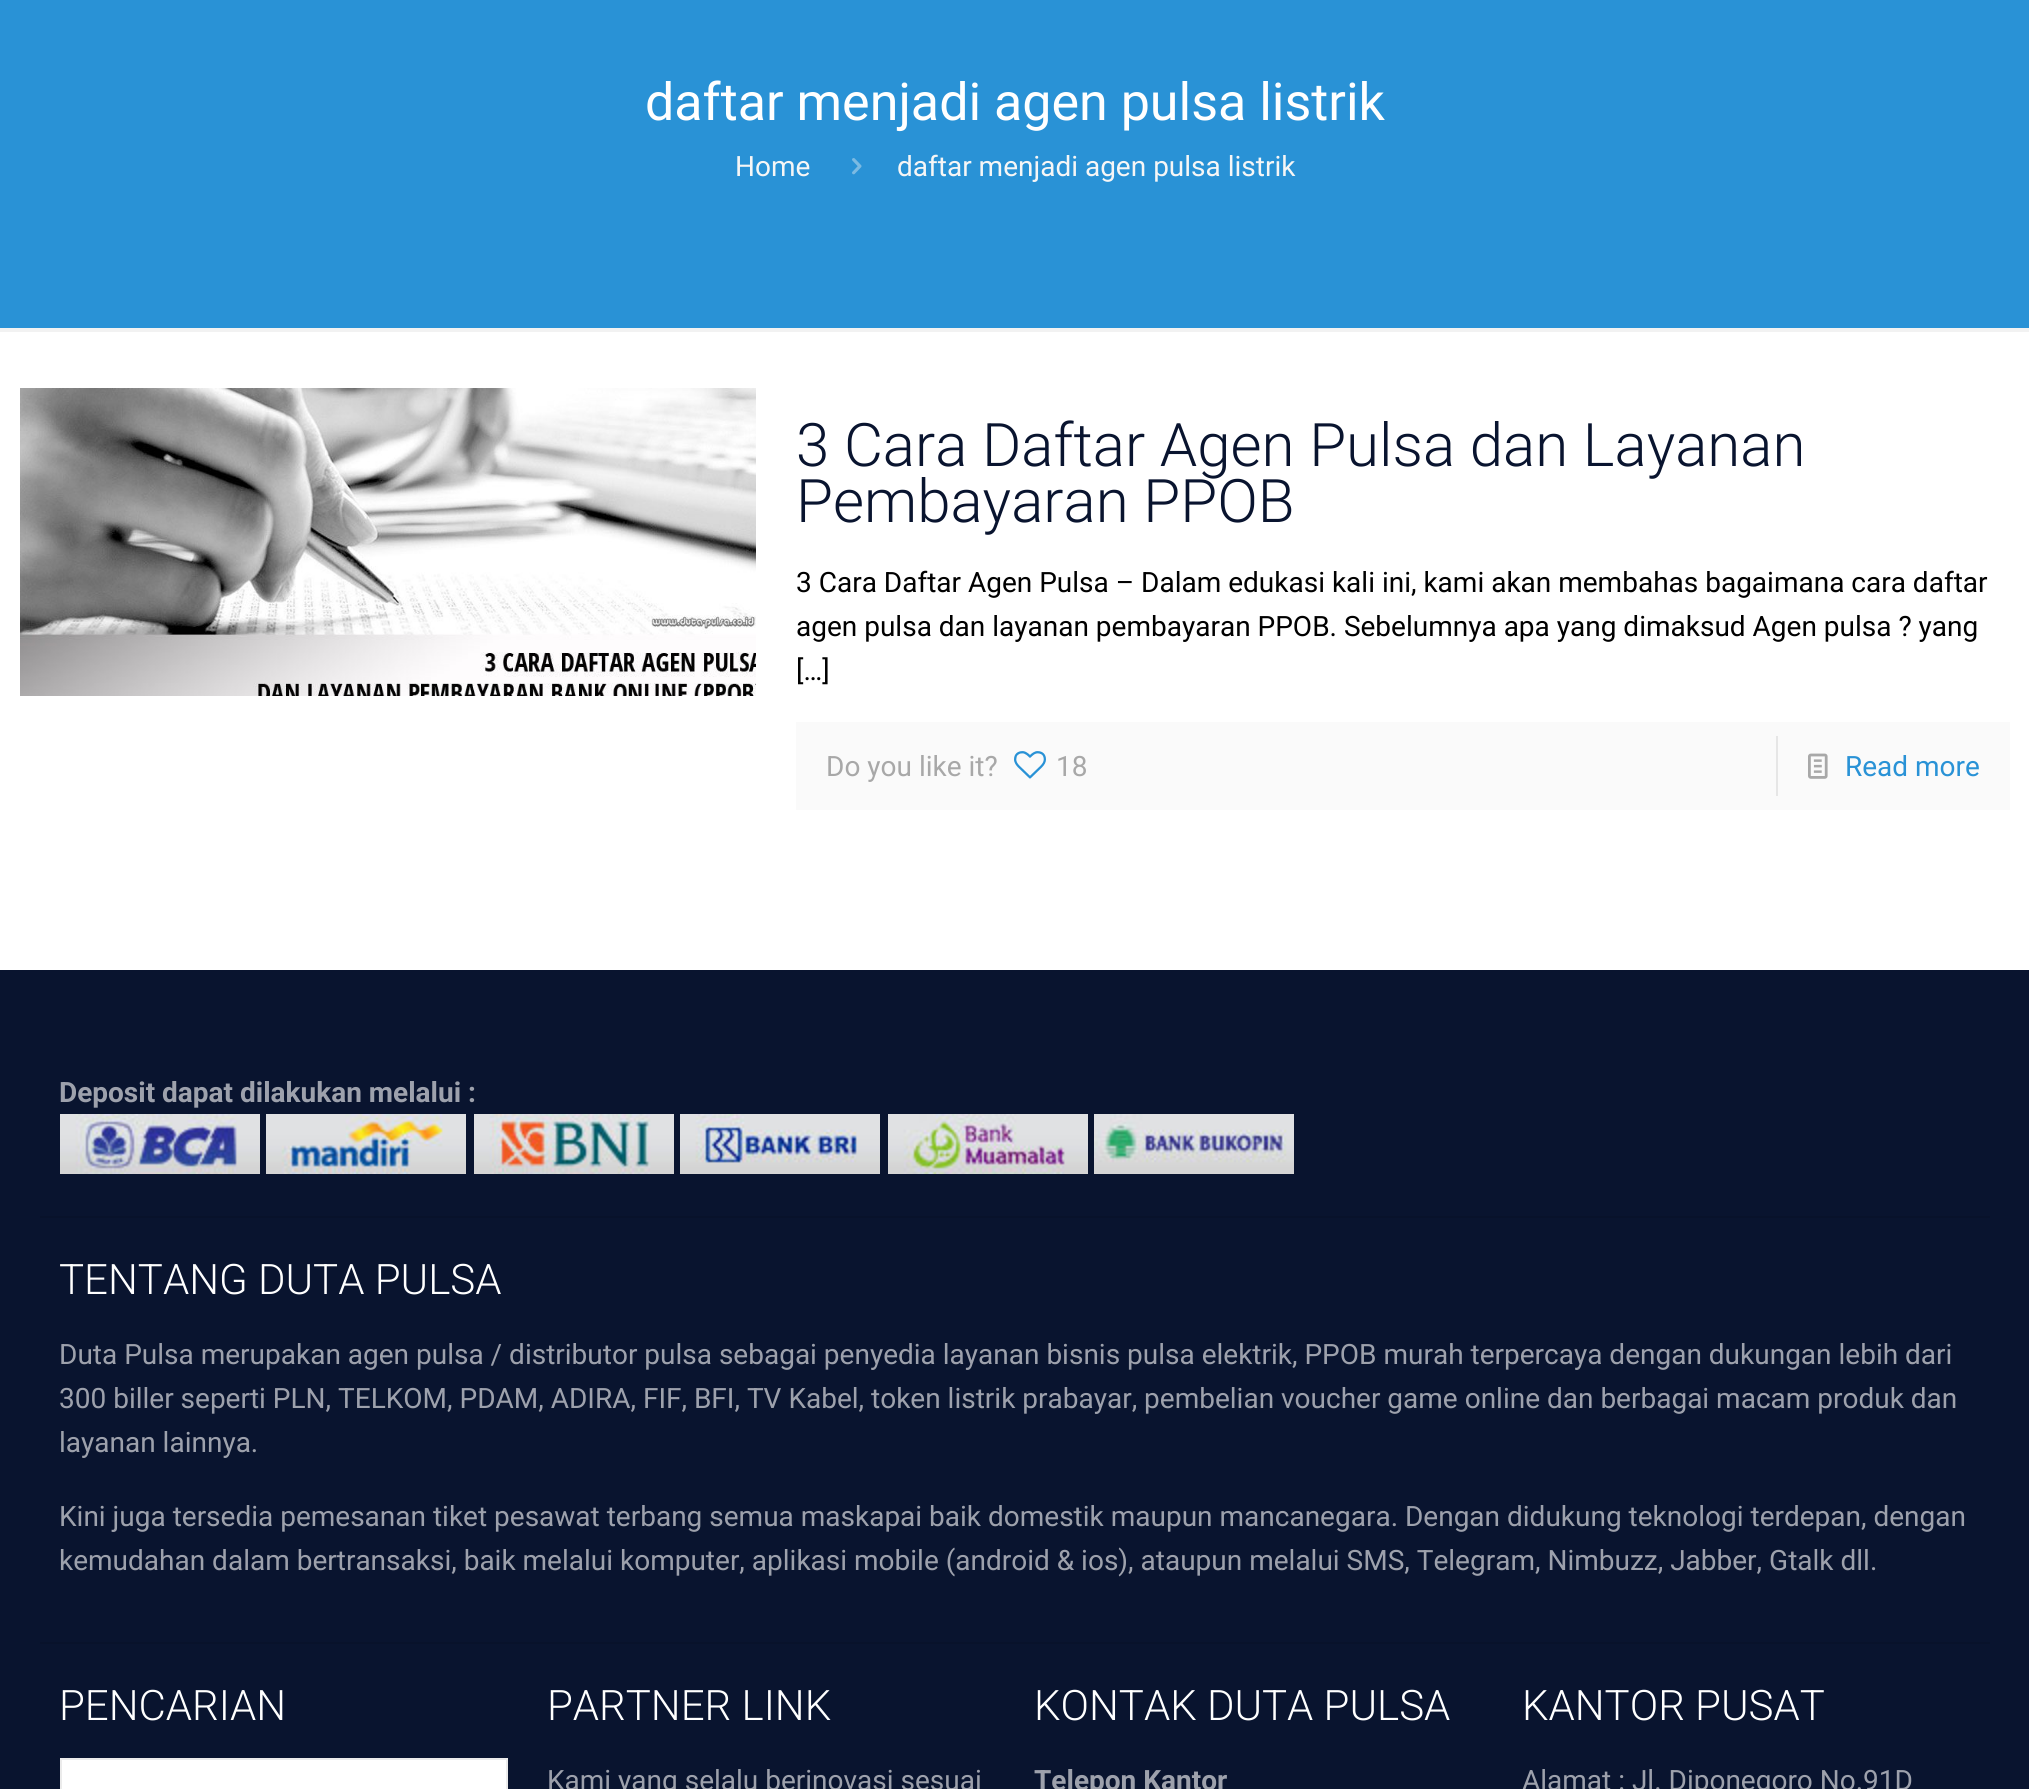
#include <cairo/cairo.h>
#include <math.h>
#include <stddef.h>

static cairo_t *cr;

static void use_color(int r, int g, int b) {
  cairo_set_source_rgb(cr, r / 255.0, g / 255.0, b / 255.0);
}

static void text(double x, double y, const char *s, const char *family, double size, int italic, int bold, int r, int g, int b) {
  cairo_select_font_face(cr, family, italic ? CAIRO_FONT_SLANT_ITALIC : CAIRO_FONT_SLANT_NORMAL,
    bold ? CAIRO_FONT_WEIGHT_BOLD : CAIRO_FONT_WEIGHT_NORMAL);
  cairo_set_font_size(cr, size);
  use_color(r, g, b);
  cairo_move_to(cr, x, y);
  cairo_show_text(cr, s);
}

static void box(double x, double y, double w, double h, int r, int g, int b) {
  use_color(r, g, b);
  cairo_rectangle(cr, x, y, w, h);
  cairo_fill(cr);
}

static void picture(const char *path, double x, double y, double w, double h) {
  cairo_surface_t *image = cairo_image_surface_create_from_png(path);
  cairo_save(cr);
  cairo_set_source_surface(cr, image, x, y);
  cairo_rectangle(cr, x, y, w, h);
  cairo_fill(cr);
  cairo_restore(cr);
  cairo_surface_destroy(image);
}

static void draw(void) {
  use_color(255, 255, 255);
  cairo_paint(cr);
  box(0, 0, 2029, 328, 41, 146, 214);
  picture("img_01.png", 852, 158, 10, 17);
  box(0, 328, 2029, 4, 242, 242, 242);
  picture("img_02.png", 20, 388, 736, 308);
  box(796, 722, 1214, 88, 250, 250, 250);
  picture("img_03.png", 1014, 751, 32, 28);
  box(1776, 736, 2, 60, 230, 230, 230);
  picture("img_04.png", 1808, 753, 20, 26);
  box(0, 970, 2029, 819, 9, 20, 47);
  picture("img_05.png", 60, 1114, 200, 60);
  picture("img_06.png", 266, 1114, 200, 60);
  picture("img_07.png", 474, 1114, 200, 60);
  picture("img_08.png", 680, 1114, 200, 60);
  picture("img_09.png", 888, 1114, 200, 60);
  picture("img_10.png", 1094, 1114, 200, 60);
  box(40, 1216, 1950, 2, 8, 18, 43);
  box(40, 1642, 1950, 2, 8, 18, 43);
  use_color(255, 255, 255);
  cairo_rectangle(cr, 61, 1759, 446, 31);
  cairo_fill_preserve(cr);
  use_color(235, 235, 235);
  cairo_stroke(cr);
  text(645, 120, "daftar menjadi agen pulsa listrik", "Roboto", 52, 0, 0, 255, 255, 255);
  text(735, 176, "Home", "Roboto", 28, 0, 0, 246, 246, 246);
  text(897, 176, "daftar menjadi agen pulsa listrik", "Roboto", 28, 0, 0, 246, 246, 246);
  text(796, 466, "3 Cara Daftar Agen Pulsa dan Layanan", "Roboto Light", 60, 0, 0, 9, 20, 47);
  text(796, 522, "Pembayaran PPOB", "Roboto Light", 60, 0, 0, 9, 20, 47);
  text(796, 592, "3 Cara Daftar Agen Pulsa – Dalam edukasi kali ini, kami akan membahas bagaimana cara daftar", "Roboto", 28, 0, 0, 0, 0, 0);
  text(796, 636, "agen pulsa dan layanan pembayaran PPOB. Sebelumnya apa yang dimaksud Agen pulsa ? yang", "Roboto", 28, 0, 0, 0, 0, 0);
  text(796, 680, "[…]", "Roboto", 28, 0, 0, 0, 0, 0);
  text(826, 776, "Do you like it?", "Roboto", 28, 0, 0, 168, 168, 168);
  text(1056, 776, "18", "Roboto", 28, 0, 0, 168, 168, 168);
  text(1845, 776, "Read more", "Roboto", 28, 0, 0, 41, 146, 214);
  text(59, 1102, "Deposit dapat dilakukan melalui :", "Roboto", 28, 0, 1, 157, 161, 172);
  text(59, 1294, "TENTANG DUTA PULSA", "Roboto Light", 42, 0, 0, 255, 255, 255);
  text(59, 1364, "Duta Pulsa merupakan agen pulsa / distributor pulsa sebagai penyedia layanan bisnis pulsa elektrik, PPOB murah terpercaya dengan dukungan lebih dari", "Roboto", 28, 0, 0, 157, 161, 172);
  text(59, 1408, "300 biller seperti PLN, TELKOM, PDAM, ADIRA, FIF, BFI, TV Kabel, token listrik prabayar, pembelian voucher game online dan berbagai macam produk dan", "Roboto", 28, 0, 0, 157, 161, 172);
  text(59, 1452, "layanan lainnya.", "Roboto", 28, 0, 0, 157, 161, 172);
  text(59, 1526, "Kini juga tersedia pemesanan tiket pesawat terbang semua maskapai baik domestik maupun mancanegara. Dengan didukung teknologi terdepan, dengan", "Roboto", 28, 0, 0, 157, 161, 172);
  text(59, 1570, "kemudahan dalam bertransaksi, baik melalui komputer, aplikasi mobile (android & ios), ataupun melalui SMS, Telegram, Nimbuzz, Jabber, Gtalk dll.", "Roboto", 28, 0, 0, 157, 161, 172);
  text(59, 1720, "PENCARIAN", "Roboto Light", 42, 0, 0, 255, 255, 255);
  text(547, 1720, "PARTNER LINK", "Roboto Light", 42, 0, 0, 255, 255, 255);
  text(547, 1790, "Kami yang selalu berinovasi sesuai", "Roboto", 28, 0, 0, 157, 161, 172);
  text(1034, 1720, "KONTAK DUTA PULSA", "Roboto Light", 42, 0, 0, 255, 255, 255);
  text(1034, 1790, "Telepon Kantor", "Roboto", 28, 0, 1, 157, 161, 172);
  text(1522, 1720, "KANTOR PUSAT", "Roboto Light", 42, 0, 0, 255, 255, 255);
  text(1522, 1790, "Alamat : Jl. Diponegoro No.91D", "Roboto", 28, 0, 0, 157, 161, 172);
}

int main(void) {
  cairo_surface_t *surface = cairo_image_surface_create(CAIRO_FORMAT_RGB24, 2029, 1789);
  cr = cairo_create(surface);
  cairo_font_options_t *options = cairo_font_options_create();
  cairo_font_options_set_hint_metrics(options, CAIRO_HINT_METRICS_OFF);
  cairo_font_options_set_hint_style(options, CAIRO_HINT_STYLE_NONE);
  cairo_set_font_options(cr, options);
  cairo_set_miter_limit(cr, 4);
  draw();
  cairo_surface_write_to_png(surface, "out.png");
  cairo_font_options_destroy(options);
  cairo_destroy(cr);
  cairo_surface_destroy(surface);
  return 0;
}
